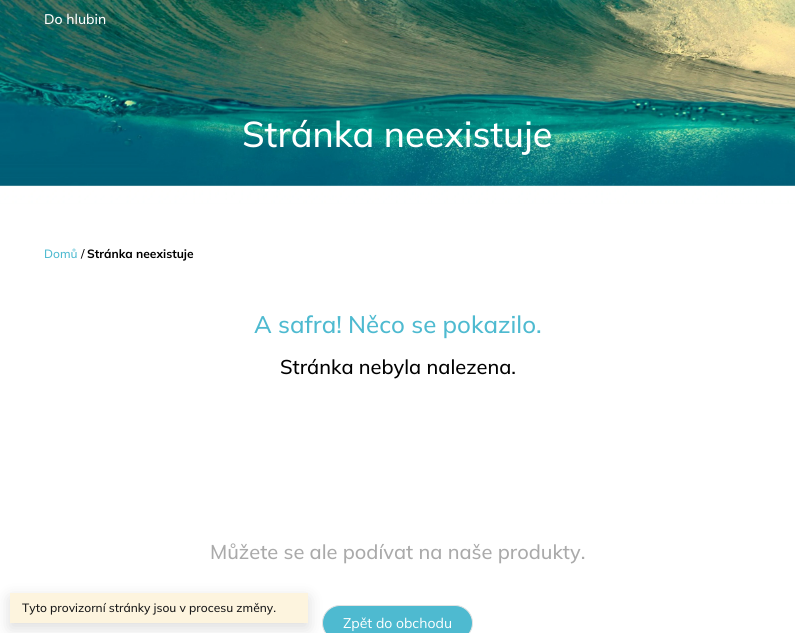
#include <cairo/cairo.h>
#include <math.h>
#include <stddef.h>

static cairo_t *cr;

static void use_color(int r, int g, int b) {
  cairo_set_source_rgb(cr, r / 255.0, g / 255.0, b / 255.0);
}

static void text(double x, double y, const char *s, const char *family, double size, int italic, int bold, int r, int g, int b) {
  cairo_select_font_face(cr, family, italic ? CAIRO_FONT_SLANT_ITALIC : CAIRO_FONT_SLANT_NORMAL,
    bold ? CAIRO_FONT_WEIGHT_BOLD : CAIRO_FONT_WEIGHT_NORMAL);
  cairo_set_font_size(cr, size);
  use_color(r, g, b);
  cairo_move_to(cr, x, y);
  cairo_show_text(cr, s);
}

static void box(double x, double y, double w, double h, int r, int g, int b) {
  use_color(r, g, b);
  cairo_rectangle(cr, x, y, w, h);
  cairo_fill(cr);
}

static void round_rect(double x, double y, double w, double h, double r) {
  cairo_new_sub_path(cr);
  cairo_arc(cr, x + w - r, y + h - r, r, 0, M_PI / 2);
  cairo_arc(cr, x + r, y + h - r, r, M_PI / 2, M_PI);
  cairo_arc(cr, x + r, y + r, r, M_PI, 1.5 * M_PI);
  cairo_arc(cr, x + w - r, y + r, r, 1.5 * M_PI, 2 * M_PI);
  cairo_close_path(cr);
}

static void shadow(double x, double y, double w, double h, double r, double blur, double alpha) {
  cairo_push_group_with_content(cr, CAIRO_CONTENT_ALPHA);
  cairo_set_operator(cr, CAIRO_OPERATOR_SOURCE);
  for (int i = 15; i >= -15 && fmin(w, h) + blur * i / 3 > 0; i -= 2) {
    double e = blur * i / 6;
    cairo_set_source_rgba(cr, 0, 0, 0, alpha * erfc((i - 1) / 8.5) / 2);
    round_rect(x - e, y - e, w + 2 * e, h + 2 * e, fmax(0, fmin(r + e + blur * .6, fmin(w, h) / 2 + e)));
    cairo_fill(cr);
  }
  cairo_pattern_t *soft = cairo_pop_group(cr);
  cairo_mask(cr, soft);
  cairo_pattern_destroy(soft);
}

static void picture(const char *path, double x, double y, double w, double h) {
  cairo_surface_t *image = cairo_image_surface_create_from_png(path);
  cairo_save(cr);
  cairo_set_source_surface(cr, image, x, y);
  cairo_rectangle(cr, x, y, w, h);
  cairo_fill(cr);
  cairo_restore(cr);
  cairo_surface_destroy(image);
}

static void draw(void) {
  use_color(255, 255, 255);
  cairo_paint(cr);
  picture("img_01.png", 0, 0, 795, 204);
  use_color(78, 186, 208);
  round_rect(322.5, 605.5, 150, 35, 17.5);
  cairo_fill_preserve(cr);
  use_color(227, 227, 227);
  cairo_set_line_width(cr, 1);
  cairo_stroke(cr);
  use_color(0, 0, 0);
  shadow(10, 598, 298, 30, 0, 8, 0.14);
  box(10, 593, 298, 30, 253, 244, 222);
  text(44, 24, "Do hlubin", "Mulish Medium", 14, 0, 0, 255, 255, 255);
  text(242, 147, "Stránka neexistuje", "Mulish Medium", 36, 0, 0, 255, 255, 255);
  text(44, 258, "Domů", "Mulish Medium", 12, 0, 0, 78, 186, 208);
  text(81, 258, "/", "Mulish Medium", 12, 0, 0, 0, 0, 0);
  text(87, 258, "Stránka neexistuje", "Mulish", 12, 0, 1, 0, 0, 0);
  text(254, 333, "A safra! Něco se pokazilo.", "Mulish Medium", 24, 0, 0, 78, 186, 208);
  text(280, 374, "Stránka nebyla nalezena.", "Mulish Medium", 20, 0, 0, 0, 0, 0);
  text(210, 559, "Můžete se ale podívat na naše produkty.", "Mulish Medium", 20, 0, 0, 170, 170, 170);
  text(343, 628, "Zpět do obchodu", "Mulish", 14, 0, 0, 255, 255, 255);
  text(22, 612, "Tyto provizorní stránky jsou v procesu změny.", "Mulish Medium", 12, 0, 0, 26, 26, 26);
}

int main(void) {
  cairo_surface_t *surface = cairo_image_surface_create(CAIRO_FORMAT_RGB24, 795, 633);
  cr = cairo_create(surface);
  cairo_font_options_t *options = cairo_font_options_create();
  cairo_font_options_set_hint_metrics(options, CAIRO_HINT_METRICS_OFF);
  cairo_font_options_set_hint_style(options, CAIRO_HINT_STYLE_NONE);
  cairo_set_font_options(cr, options);
  cairo_set_miter_limit(cr, 4);
  draw();
  cairo_surface_write_to_png(surface, "out.png");
  cairo_font_options_destroy(options);
  cairo_destroy(cr);
  cairo_surface_destroy(surface);
  return 0;
}
